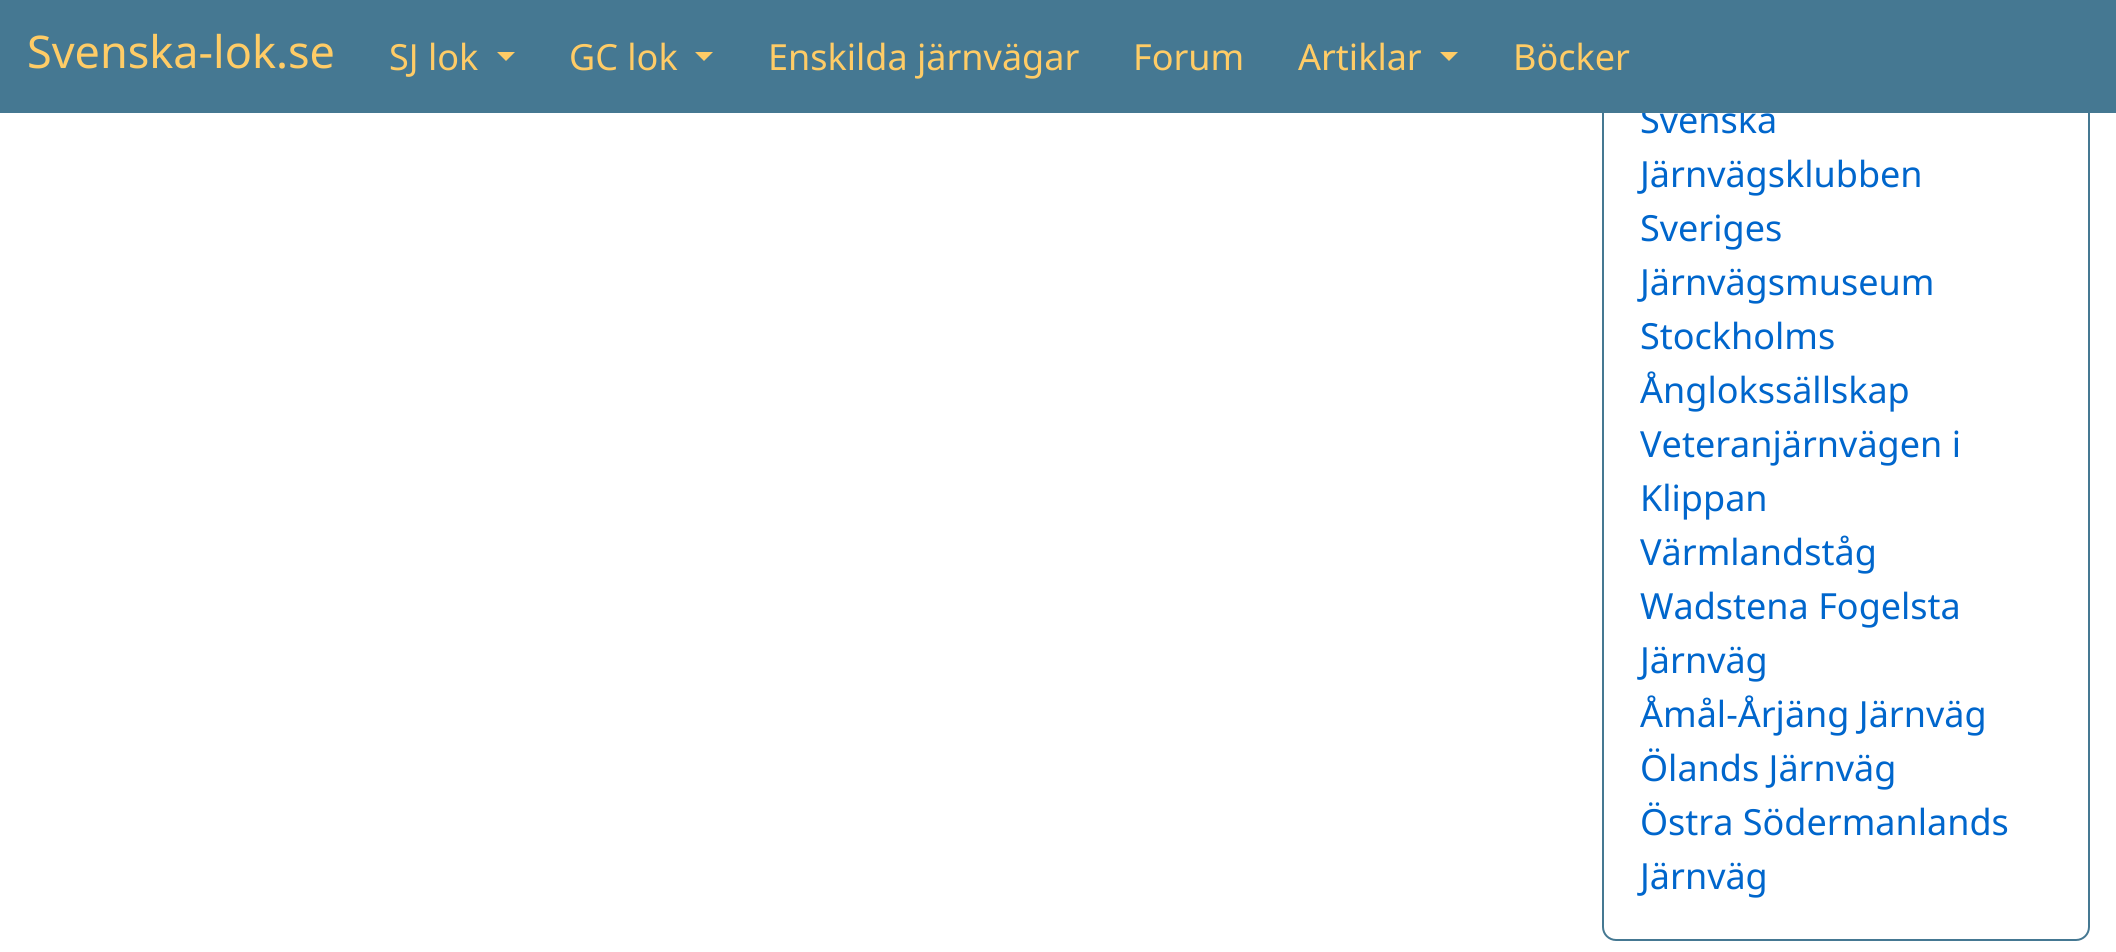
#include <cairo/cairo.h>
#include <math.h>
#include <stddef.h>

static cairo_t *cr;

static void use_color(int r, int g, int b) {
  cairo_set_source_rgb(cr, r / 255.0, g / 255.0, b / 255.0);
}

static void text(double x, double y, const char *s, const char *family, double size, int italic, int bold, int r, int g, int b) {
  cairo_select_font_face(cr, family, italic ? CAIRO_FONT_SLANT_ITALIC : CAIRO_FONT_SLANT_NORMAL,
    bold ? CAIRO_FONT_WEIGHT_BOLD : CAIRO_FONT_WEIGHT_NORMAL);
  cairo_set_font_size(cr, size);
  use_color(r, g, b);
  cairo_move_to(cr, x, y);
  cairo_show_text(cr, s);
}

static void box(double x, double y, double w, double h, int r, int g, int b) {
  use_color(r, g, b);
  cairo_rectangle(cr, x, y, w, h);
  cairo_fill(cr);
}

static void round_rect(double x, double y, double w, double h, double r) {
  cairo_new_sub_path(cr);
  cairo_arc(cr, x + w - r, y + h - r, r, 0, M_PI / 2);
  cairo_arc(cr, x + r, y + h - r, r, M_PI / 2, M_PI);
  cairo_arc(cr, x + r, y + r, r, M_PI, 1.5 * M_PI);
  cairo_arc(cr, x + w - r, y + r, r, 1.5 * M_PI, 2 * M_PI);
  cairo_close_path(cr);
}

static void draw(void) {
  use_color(255, 255, 255);
  cairo_paint(cr);
  round_rect(1603, -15, 486, 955, 13);
  use_color(69, 120, 146);
  cairo_stroke(cr);
  text(1640, 133, "Svenska", "Noto Sans", 36, 0, 0, 0, 102, 204);
  box(0, 0, 2116, 113, 69, 120, 146);
  use_color(255, 204, 102);
  cairo_new_path(cr);
  cairo_move_to(cr, 1440, 52);
  cairo_line_to(cr, 1458, 52);
  cairo_line_to(cr, 1449, 61);
  cairo_close_path(cr);
  cairo_fill(cr);
  text(1298, 70, "Artiklar", "Noto Sans", 36, 0, 0, 255, 204, 102);
  cairo_new_path(cr);
  cairo_move_to(cr, 695, 52);
  cairo_line_to(cr, 713, 52);
  cairo_line_to(cr, 704, 61);
  cairo_close_path(cr);
  cairo_fill(cr);
  text(569, 70, "GC lok", "Noto Sans", 36, 0, 0, 255, 204, 102);
  cairo_new_path(cr);
  cairo_move_to(cr, 497, 52);
  cairo_line_to(cr, 515, 52);
  cairo_line_to(cr, 506, 61);
  cairo_close_path(cr);
  cairo_fill(cr);
  text(389, 70, "SJ lok", "Noto Sans", 36, 0, 0, 255, 204, 102);
  text(1513, 70, "Böcker", "Noto Sans", 36, 0, 0, 255, 204, 102);
  text(1133, 70, "Forum", "Noto Sans", 36, 0, 0, 255, 204, 102);
  text(768, 70, "Enskilda järnvägar", "Noto Sans", 36, 0, 0, 255, 204, 102);
  text(27, 68, "Svenska-lok.se", "Noto Sans", 45, 0, 0, 255, 204, 102);
  text(1640, 187, "Järnvägsklubben", "Noto Sans", 36, 0, 0, 0, 102, 204);
  text(1640, 241, "Sveriges", "Noto Sans", 36, 0, 0, 0, 102, 204);
  text(1640, 295, "Järnvägsmuseum", "Noto Sans", 36, 0, 0, 0, 102, 204);
  text(1640, 349, "Stockholms", "Noto Sans", 36, 0, 0, 0, 102, 204);
  text(1640, 403, "Ånglokssällskap", "Noto Sans", 36, 0, 0, 0, 102, 204);
  text(1640, 457, "Veteranjärnvägen i", "Noto Sans", 36, 0, 0, 0, 102, 204);
  text(1640, 511, "Klippan", "Noto Sans", 36, 0, 0, 0, 102, 204);
  text(1640, 565, "Värmlandståg", "Noto Sans", 36, 0, 0, 0, 102, 204);
  text(1640, 619, "Wadstena Fogelsta", "Noto Sans", 36, 0, 0, 0, 102, 204);
  text(1640, 673, "Järnväg", "Noto Sans", 36, 0, 0, 0, 102, 204);
  text(1640, 727, "Åmål-Årjäng Järnväg", "Noto Sans", 36, 0, 0, 0, 102, 204);
  text(1640, 781, "Ölands Järnväg", "Noto Sans", 36, 0, 0, 0, 102, 204);
  text(1640, 835, "Östra Södermanlands", "Noto Sans", 36, 0, 0, 0, 102, 204);
  text(1640, 889, "Järnväg", "Noto Sans", 36, 0, 0, 0, 102, 204);
}

int main(void) {
  cairo_surface_t *surface = cairo_image_surface_create(CAIRO_FORMAT_RGB24, 2116, 952);
  cr = cairo_create(surface);
  cairo_font_options_t *options = cairo_font_options_create();
  cairo_font_options_set_hint_metrics(options, CAIRO_HINT_METRICS_OFF);
  cairo_font_options_set_hint_style(options, CAIRO_HINT_STYLE_NONE);
  cairo_set_font_options(cr, options);
  cairo_set_miter_limit(cr, 4);
  draw();
  cairo_surface_write_to_png(surface, "out.png");
  cairo_font_options_destroy(options);
  cairo_destroy(cr);
  cairo_surface_destroy(surface);
  return 0;
}
